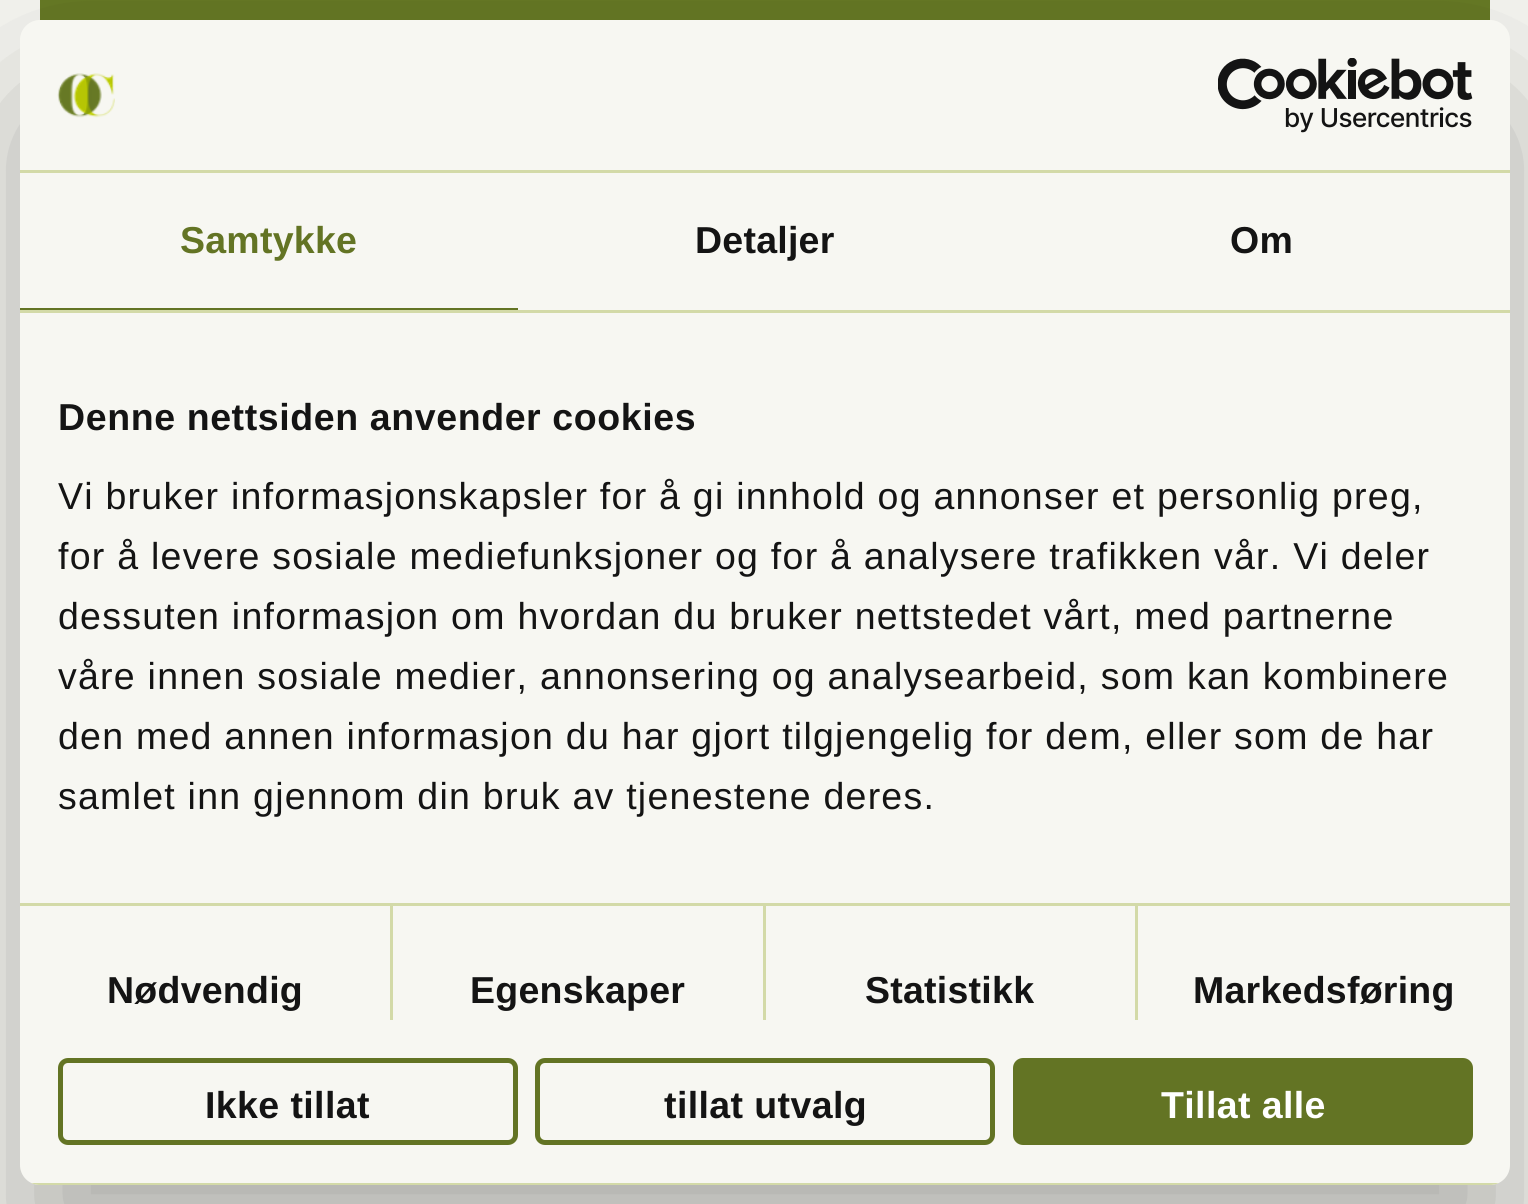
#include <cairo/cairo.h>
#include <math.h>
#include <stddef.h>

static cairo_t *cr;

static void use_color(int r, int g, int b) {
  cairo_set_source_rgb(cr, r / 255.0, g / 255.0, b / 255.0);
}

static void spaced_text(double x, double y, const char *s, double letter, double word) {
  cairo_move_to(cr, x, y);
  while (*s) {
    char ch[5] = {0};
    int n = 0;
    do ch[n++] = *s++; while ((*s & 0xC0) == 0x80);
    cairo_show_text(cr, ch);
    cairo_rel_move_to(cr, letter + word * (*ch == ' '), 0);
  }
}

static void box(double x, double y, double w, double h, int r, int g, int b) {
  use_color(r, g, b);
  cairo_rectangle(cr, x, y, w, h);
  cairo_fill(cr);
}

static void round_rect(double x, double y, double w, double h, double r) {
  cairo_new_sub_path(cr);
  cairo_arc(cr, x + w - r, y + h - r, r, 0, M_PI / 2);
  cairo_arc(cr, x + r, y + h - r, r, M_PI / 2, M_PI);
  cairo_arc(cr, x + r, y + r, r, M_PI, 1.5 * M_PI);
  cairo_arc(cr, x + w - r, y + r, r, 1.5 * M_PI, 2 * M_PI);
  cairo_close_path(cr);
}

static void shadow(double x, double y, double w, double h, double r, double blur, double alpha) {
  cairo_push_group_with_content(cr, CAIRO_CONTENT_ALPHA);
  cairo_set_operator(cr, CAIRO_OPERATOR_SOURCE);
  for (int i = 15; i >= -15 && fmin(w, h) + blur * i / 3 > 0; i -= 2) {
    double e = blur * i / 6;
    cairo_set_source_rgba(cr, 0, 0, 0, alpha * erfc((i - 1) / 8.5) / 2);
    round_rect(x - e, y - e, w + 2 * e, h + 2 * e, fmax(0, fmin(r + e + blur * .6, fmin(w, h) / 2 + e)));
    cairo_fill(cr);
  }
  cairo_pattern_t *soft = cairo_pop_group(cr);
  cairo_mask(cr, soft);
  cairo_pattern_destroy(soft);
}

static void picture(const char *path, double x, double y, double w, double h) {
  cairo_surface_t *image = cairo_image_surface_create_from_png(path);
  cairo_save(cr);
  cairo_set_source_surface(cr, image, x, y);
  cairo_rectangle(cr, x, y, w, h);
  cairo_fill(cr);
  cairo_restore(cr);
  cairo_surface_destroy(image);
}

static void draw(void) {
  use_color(247, 247, 242);
  cairo_paint(cr);
  box(40, 0, 1450, 20, 103, 122, 37);
  use_color(0, 0, 0);
  shadow(20, 100, 1490, 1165, 20, 85, 0.3);
  use_color(247, 247, 242);
  round_rect(20, 20, 1490, 1165, 20);
  cairo_fill(cr);
  box(20, 170, 1490, 3, 211, 218, 168);
  picture("img_01.png", 57, 73, 58, 45);
  picture("img_02.png", 1218, 58, 255, 75);
  box(20, 310, 1490, 3, 211, 218, 168);
  box(20, 308, 498, 2, 99, 116, 36);
  box(390, 905, 3, 115, 211, 218, 168);
  box(763, 905, 3, 115, 211, 218, 168);
  box(1135, 905, 3, 115, 211, 218, 168);
  box(20, 903, 1490, 3, 211, 218, 168);
  cairo_save(cr);
  round_rect(20, 20, 1490, 1165, 20);
  cairo_clip(cr);
  box(31, 1183, 1468, 2, 211, 218, 168);
  cairo_restore(cr);
  round_rect(60.5, 1060.5, 455, 82, 7.5);
  use_color(99, 116, 36);
  cairo_set_line_width(cr, 5);
  cairo_stroke(cr);
  round_rect(537.5, 1060.5, 455, 82, 7.5);
  cairo_stroke(cr);
  round_rect(1015.5, 1060.5, 455, 82, 7.5);
  cairo_fill_preserve(cr);
  cairo_stroke(cr);
  cairo_select_font_face(cr, "Liberation Sans", CAIRO_FONT_SLANT_NORMAL, CAIRO_FONT_WEIGHT_BOLD);
  cairo_set_font_size(cr, 37.5);
  spaced_text(180, 253, "Samtykke", 0.25, 0);
  use_color(20, 20, 20);
  spaced_text(695, 253, "Detaljer", 0.25, 0);
  spaced_text(1230, 253, "Om", 0.25, 0);
  spaced_text(58, 430, "Denne nettsiden anvender cookies", 0.6, 0);
  cairo_select_font_face(cr, "Liberation Sans", CAIRO_FONT_SLANT_NORMAL, CAIRO_FONT_WEIGHT_NORMAL);
  spaced_text(58, 509, "Vi bruker informasjonskapsler for å gi innhold og annonser et personlig preg,", 1.25, 0);
  spaced_text(58, 569, "for å levere sosiale mediefunksjoner og for å analysere trafikken vår. Vi deler", 1.25, 0);
  spaced_text(58, 629, "dessuten informasjon om hvordan du bruker nettstedet vårt, med partnerne", 1.25, 0);
  spaced_text(58, 689, "våre innen sosiale medier, annonsering og analysearbeid, som kan kombinere", 1.25, 0);
  spaced_text(58, 749, "den med annen informasjon du har gjort tilgjengelig for dem, eller som de har", 1.25, 0);
  spaced_text(58, 809, "samlet inn gjennom din bruk av tjenestene deres.", 1.25, 0);
  cairo_select_font_face(cr, "Liberation Sans", CAIRO_FONT_SLANT_NORMAL, CAIRO_FONT_WEIGHT_BOLD);
  spaced_text(107, 1003, "Nødvendig", 0.25, 0);
  spaced_text(470, 1003, "Egenskaper", 0.25, 0);
  spaced_text(865, 1003, "Statistikk", 0.25, 0);
  spaced_text(1193, 1003, "Markedsføring", 0.25, 0);
  spaced_text(205, 1118, "Ikke tillat", 0.4, 0);
  spaced_text(664, 1118, "tillat utvalg", 0.4, 0);
  use_color(255, 255, 255);
  spaced_text(1161, 1118, "Tillat alle", 0.4, 0);
}

int main(void) {
  cairo_surface_t *surface = cairo_image_surface_create(CAIRO_FORMAT_RGB24, 1528, 1204);
  cr = cairo_create(surface);
  cairo_font_options_t *options = cairo_font_options_create();
  cairo_font_options_set_hint_metrics(options, CAIRO_HINT_METRICS_OFF);
  cairo_font_options_set_hint_style(options, CAIRO_HINT_STYLE_NONE);
  cairo_set_font_options(cr, options);
  cairo_set_miter_limit(cr, 4);
  draw();
  cairo_surface_write_to_png(surface, "out.png");
  cairo_font_options_destroy(options);
  cairo_destroy(cr);
  cairo_surface_destroy(surface);
  return 0;
}
